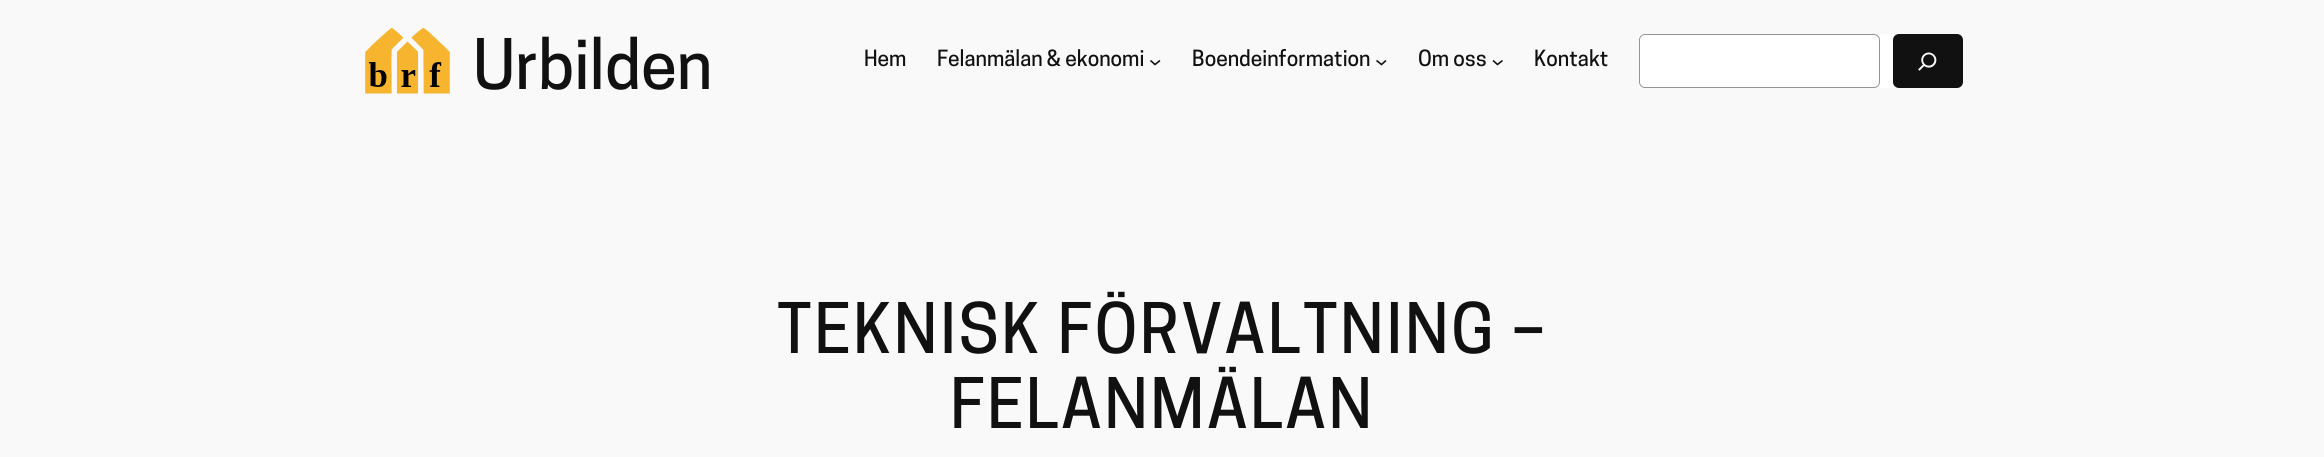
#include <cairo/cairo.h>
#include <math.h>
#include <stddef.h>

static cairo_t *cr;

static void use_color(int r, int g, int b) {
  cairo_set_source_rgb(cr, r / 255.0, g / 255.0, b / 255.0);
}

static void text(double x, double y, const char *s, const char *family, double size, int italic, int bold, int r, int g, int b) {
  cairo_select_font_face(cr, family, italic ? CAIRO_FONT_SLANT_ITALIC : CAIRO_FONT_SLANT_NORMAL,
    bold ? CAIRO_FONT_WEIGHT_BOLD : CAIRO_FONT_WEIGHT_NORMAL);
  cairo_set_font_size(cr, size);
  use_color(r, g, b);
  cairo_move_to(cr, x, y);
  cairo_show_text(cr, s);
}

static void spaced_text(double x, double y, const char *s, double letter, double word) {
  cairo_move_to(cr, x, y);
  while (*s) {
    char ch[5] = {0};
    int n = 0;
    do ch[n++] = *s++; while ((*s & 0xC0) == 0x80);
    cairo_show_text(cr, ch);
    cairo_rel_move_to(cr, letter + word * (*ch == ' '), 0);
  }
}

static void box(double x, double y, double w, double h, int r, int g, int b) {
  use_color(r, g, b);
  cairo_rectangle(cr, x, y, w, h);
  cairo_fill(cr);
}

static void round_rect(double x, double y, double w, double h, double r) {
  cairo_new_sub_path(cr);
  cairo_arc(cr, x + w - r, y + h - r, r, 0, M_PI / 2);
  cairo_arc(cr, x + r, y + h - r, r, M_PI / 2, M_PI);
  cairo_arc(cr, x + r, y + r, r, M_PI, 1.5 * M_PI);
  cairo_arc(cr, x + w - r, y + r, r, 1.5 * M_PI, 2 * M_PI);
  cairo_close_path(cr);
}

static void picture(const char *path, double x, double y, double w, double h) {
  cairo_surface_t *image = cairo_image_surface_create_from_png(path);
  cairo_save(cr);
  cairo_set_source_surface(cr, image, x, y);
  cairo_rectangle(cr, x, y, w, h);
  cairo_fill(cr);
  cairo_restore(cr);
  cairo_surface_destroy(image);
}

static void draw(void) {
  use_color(249, 249, 249);
  cairo_paint(cr);
  picture("img_01.png", 365, 28, 85, 66);
  cairo_new_path(cr);
  cairo_move_to(cr, 1150.5, 60.5);
  cairo_line_to(cr, 1155, 64.5);
  cairo_line_to(cr, 1160, 60.5);
  use_color(17, 17, 17);
  cairo_set_line_width(cr, 1.6);
  cairo_stroke(cr);
  cairo_new_path(cr);
  cairo_move_to(cr, 1376.5, 60.5);
  cairo_line_to(cr, 1381.5, 64.5);
  cairo_line_to(cr, 1386, 60.5);
  cairo_stroke(cr);
  cairo_new_path(cr);
  cairo_move_to(cr, 1493, 60.5);
  cairo_line_to(cr, 1497.5, 64.5);
  cairo_line_to(cr, 1502.5, 60.5);
  cairo_stroke(cr);
  box(1639, 34, 324, 54, 255, 255, 255);
  round_rect(1639.5, 34.5, 240, 53, 5.5);
  use_color(148, 148, 148);
  cairo_set_line_width(cr, 1);
  cairo_stroke(cr);
  use_color(17, 17, 17);
  round_rect(1893, 34, 70, 54, 6);
  cairo_fill(cr);
  picture("img_02.png", 1918, 52, 19, 19);
  text(473, 89, "Urbilden", "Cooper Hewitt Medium", 65.4, 0, 0, 17, 17, 17);
  text(864, 66, "Hem", "Cooper Hewitt Medium", 21, 0, 0, 17, 17, 17);
  text(937, 66, "Felanmälan & ekonomi", "Cooper Hewitt Medium", 21, 0, 0, 17, 17, 17);
  text(1192, 66, "Boendeinformation", "Cooper Hewitt Medium", 21, 0, 0, 17, 17, 17);
  text(1418, 66, "Om oss", "Cooper Hewitt Medium", 21, 0, 0, 17, 17, 17);
  text(1534, 66, "Kontakt", "Cooper Hewitt Medium", 21, 0, 0, 17, 17, 17);
  cairo_set_font_size(cr, 65.4);
  spaced_text(777, 353, "TEKNISK FÖRVALTNING –", 2.5, 0);
  spaced_text(950, 428, "FELANMÄLAN", 2.5, 0);
}

int main(void) {
  cairo_surface_t *surface = cairo_image_surface_create(CAIRO_FORMAT_RGB24, 2324, 457);
  cr = cairo_create(surface);
  cairo_font_options_t *options = cairo_font_options_create();
  cairo_font_options_set_hint_metrics(options, CAIRO_HINT_METRICS_OFF);
  cairo_font_options_set_hint_style(options, CAIRO_HINT_STYLE_NONE);
  cairo_set_font_options(cr, options);
  cairo_set_miter_limit(cr, 4);
  draw();
  cairo_surface_write_to_png(surface, "out.png");
  cairo_font_options_destroy(options);
  cairo_destroy(cr);
  cairo_surface_destroy(surface);
  return 0;
}
